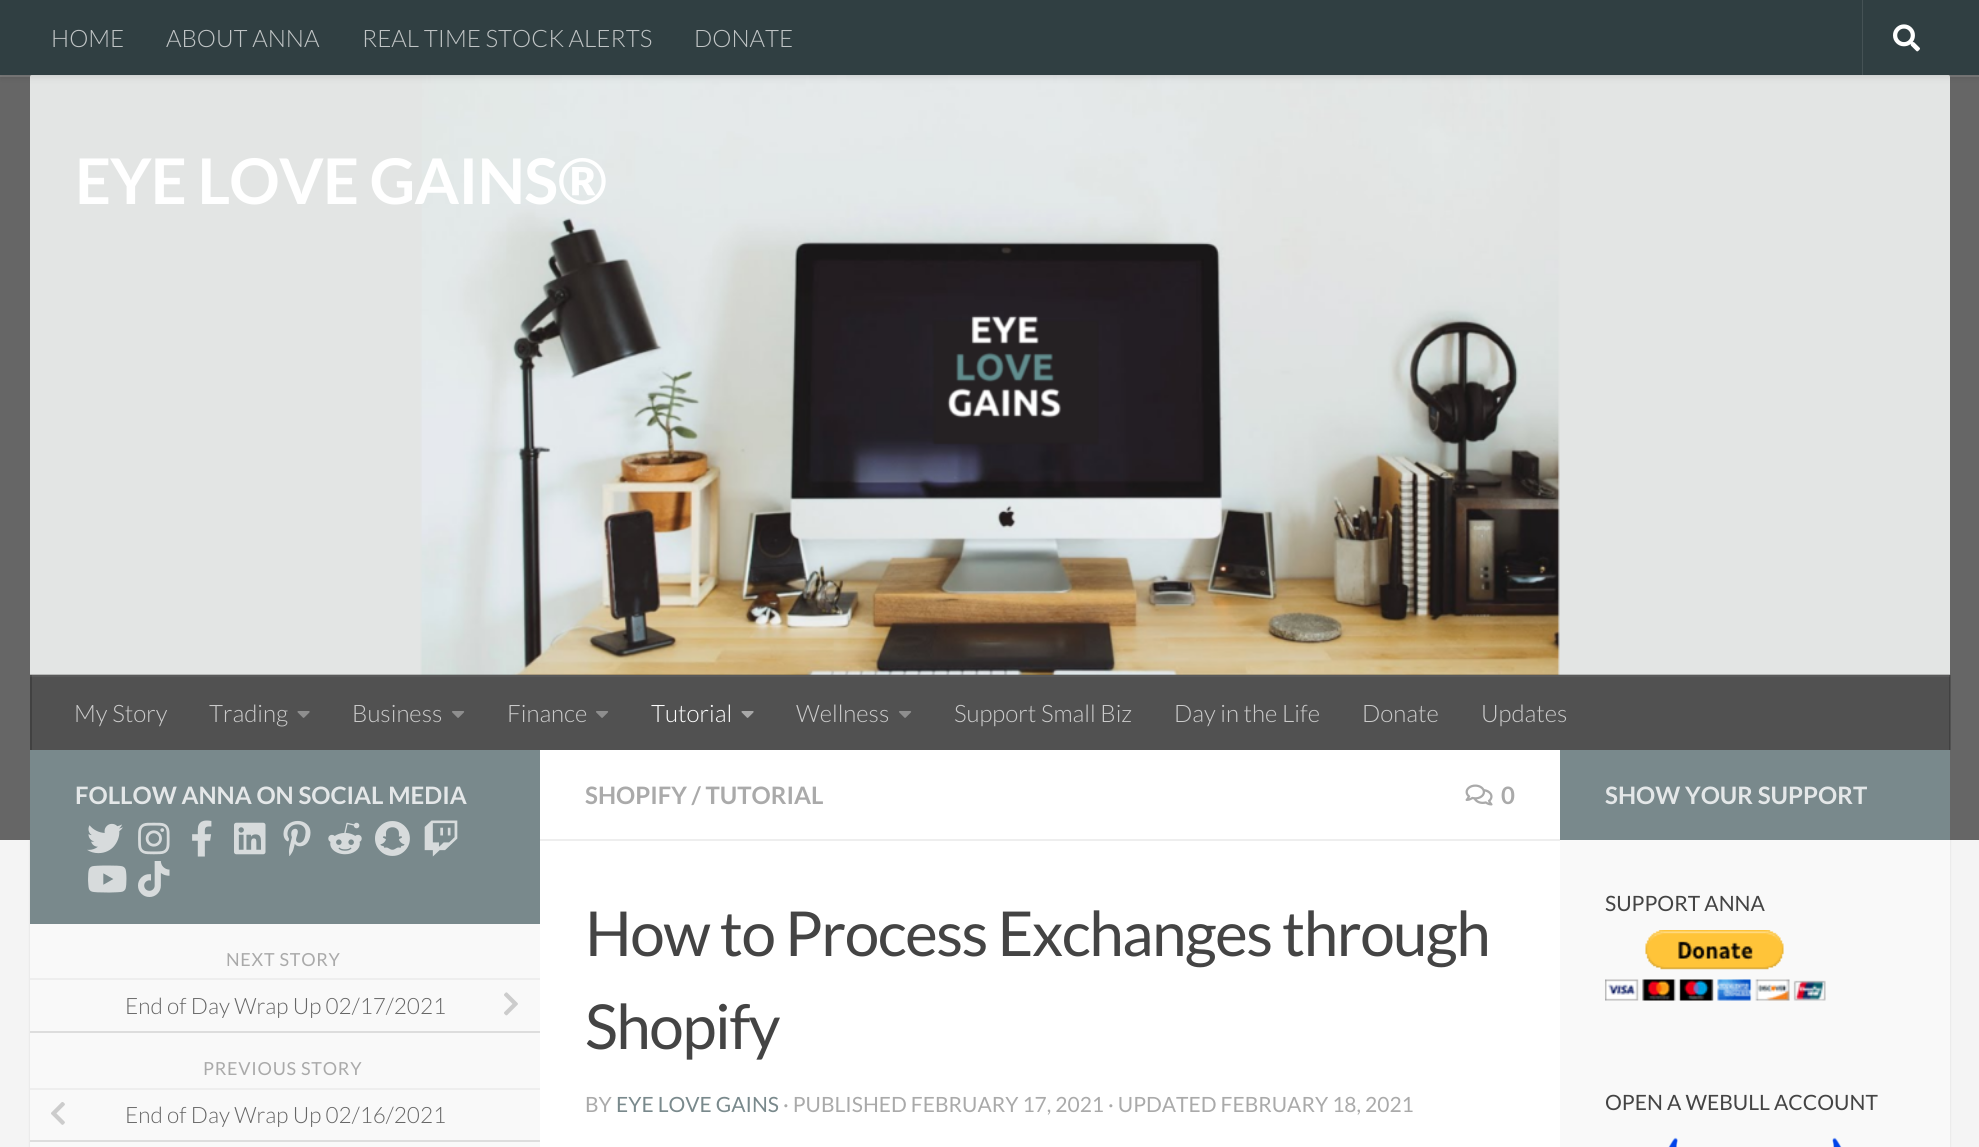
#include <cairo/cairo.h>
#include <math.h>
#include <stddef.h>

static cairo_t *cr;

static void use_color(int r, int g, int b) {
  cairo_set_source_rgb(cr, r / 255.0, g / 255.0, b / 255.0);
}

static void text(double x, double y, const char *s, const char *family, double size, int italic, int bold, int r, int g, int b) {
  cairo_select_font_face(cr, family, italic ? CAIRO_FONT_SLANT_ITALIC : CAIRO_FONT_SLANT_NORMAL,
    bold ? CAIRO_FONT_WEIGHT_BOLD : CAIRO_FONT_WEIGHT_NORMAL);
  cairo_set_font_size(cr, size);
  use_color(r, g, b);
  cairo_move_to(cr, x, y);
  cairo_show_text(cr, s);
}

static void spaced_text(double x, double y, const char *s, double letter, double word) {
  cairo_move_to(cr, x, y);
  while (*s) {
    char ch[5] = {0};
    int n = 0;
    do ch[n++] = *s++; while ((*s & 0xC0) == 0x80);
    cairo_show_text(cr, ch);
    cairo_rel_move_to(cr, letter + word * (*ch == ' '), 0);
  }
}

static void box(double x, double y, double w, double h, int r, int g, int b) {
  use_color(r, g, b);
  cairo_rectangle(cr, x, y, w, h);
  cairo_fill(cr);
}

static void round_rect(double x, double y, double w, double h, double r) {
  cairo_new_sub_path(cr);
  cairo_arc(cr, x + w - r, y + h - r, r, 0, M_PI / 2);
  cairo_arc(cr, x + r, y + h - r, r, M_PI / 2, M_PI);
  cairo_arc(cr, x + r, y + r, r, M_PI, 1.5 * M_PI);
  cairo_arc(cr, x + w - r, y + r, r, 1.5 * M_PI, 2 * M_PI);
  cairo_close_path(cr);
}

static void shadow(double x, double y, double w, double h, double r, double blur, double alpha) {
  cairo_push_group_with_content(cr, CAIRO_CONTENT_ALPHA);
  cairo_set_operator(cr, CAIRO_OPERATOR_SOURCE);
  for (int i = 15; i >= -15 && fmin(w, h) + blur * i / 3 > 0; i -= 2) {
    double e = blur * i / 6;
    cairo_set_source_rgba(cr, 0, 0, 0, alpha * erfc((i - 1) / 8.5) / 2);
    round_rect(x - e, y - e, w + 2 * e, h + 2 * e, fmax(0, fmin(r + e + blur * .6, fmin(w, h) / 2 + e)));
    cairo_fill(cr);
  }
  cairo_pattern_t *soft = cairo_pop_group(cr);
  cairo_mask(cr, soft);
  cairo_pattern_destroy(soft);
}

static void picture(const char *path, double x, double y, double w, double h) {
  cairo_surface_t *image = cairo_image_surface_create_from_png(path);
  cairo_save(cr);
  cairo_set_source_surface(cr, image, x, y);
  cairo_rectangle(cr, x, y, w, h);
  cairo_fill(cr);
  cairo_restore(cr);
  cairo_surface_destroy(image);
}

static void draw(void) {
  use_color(244, 244, 244);
  cairo_paint(cr);
  use_color(0, 0, 0);
  shadow(30, 752, 1920, 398, 0, 1, 0.1);
  box(0, 75, 1979, 765, 102, 102, 102);
  picture("img_02.png", 30, 75, 1920, 600);
  cairo_set_source_rgba(cr, 1, 1, 1, 0.15);
  cairo_rectangle(cr, 0, 75, 1979, 2);
  cairo_fill(cr);
  use_color(0, 0, 0);
  shadow(0, 0, 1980, 75, 0, 4, 0.2);
  box(0, 0, 1979, 75, 48, 63, 66);
  box(1862, 0, 1, 75, 69, 82, 85);
  picture("img_01.png", 1893, 24, 27, 28);
  cairo_set_source_rgba(cr, 0, 0, 0, 0.2);
  cairo_rectangle(cr, 30, 674, 1920, 1);
  cairo_fill(cr);
  box(32, 675, 1918, 75, 81, 81, 81);
  cairo_set_source_rgba(cr, 0, 0, 0, 0.2);
  cairo_rectangle(cr, 1949, 675, 2, 75);
  cairo_fill(cr);
  box(30, 675, 2, 75, 65, 65, 65);
  cairo_set_source_rgba(cr, 1, 1, 1, 0.05);
  cairo_rectangle(cr, 30, 675, 1920, 2);
  cairo_fill(cr);
  picture("img_03.png", 297, 711, 13, 7);
  picture("img_04.png", 452, 711, 13, 7);
  picture("img_04.png", 596, 711, 13, 7);
  picture("img_05.png", 741, 711, 13, 7);
  picture("img_04.png", 899, 711, 13, 7);
  box(540, 750, 1020, 397, 255, 255, 255);
  box(30, 750, 510, 174, 121, 137, 140);
  picture("img_06.png", 87, 823, 36, 31);
  picture("img_07.png", 138, 822, 32, 33);
  picture("img_08.png", 192, 820, 20, 37);
  picture("img_09.png", 234, 822, 32, 33);
  picture("img_10.png", 283, 820, 28, 36);
  picture("img_11.png", 328, 822, 34, 33);
  picture("img_12.png", 375, 821, 35, 35);
  picture("img_13.png", 424, 820, 34, 37);
  picture("img_14.png", 88, 865, 39, 28);
  picture("img_15.png", 138, 861, 32, 36);
  box(30, 924, 510, 223, 249, 249, 249);
  box(30, 978, 510, 2, 238, 238, 238);
  box(30, 1031, 510, 2, 221, 221, 221);
  picture("img_16.png", 504, 992, 14, 24);
  box(30, 1088, 510, 2, 238, 238, 238);
  box(30, 1140, 510, 2, 221, 221, 221);
  picture("img_17.png", 51, 1102, 14, 23);
  box(540, 839, 1020, 2, 238, 238, 238);
  picture("img_18.png", 1465, 784, 28, 22);
  box(1560, 750, 390, 90, 121, 137, 140);
  box(1560, 840, 390, 307, 249, 249, 249);
  picture("img_19.png", 1605, 930, 221, 71);
  picture("img_20.png", 1668, 1137, 174, 10);
  text(51, 47, "HOME", "Lato Light", 24, 0, 0, 193, 197, 198);
  text(166, 47, "ABOUT ANNA", "Lato Light", 24, 0, 0, 193, 197, 198);
  text(362, 47, "REAL TIME STOCK ALERTS", "Lato Light", 24, 0, 0, 193, 197, 198);
  text(694, 47, "DONATE", "Lato Light", 24, 0, 0, 193, 197, 198);
  cairo_select_font_face(cr, "Lato", CAIRO_FONT_SLANT_NORMAL, CAIRO_FONT_WEIGHT_BOLD);
  cairo_set_font_size(cr, 63);
  use_color(255, 255, 255);
  spaced_text(75, 204, "EYE LOVE GAINS®", -0.75, 0);
  text(74, 722, "My Story", "Lato Light", 24, 0, 0, 203, 203, 203);
  text(209, 722, "Trading", "Lato Light", 24, 0, 0, 203, 203, 203);
  text(352, 722, "Business", "Lato Light", 24, 0, 0, 203, 203, 203);
  text(507, 722, "Finance", "Lato Light", 24, 0, 0, 203, 203, 203);
  text(651, 722, "Tutorial", "Lato Light", 24, 0, 0, 255, 255, 255);
  text(796, 722, "Wellness", "Lato Light", 24, 0, 0, 203, 203, 203);
  text(954, 722, "Support Small Biz", "Lato Light", 24, 0, 0, 203, 203, 203);
  text(1174, 722, "Day in the Life", "Lato Light", 24, 0, 0, 203, 203, 203);
  text(1362, 722, "Donate", "Lato Light", 24, 0, 0, 203, 203, 203);
  text(1481, 722, "Updates", "Lato Light", 24, 0, 0, 203, 203, 203);
  text(75, 804, "FOLLOW ANNA ON SOCIAL MEDIA", "Lato", 24, 0, 1, 228, 231, 232);
  cairo_select_font_face(cr, "Lato", CAIRO_FONT_SLANT_NORMAL, CAIRO_FONT_WEIGHT_NORMAL);
  cairo_set_font_size(cr, 18);
  use_color(170, 170, 170);
  spaced_text(226, 966, "NEXT STORY", 0.75, 0);
  text(125, 1014, "End of Day Wrap Up 02/17/2021", "Lato Light", 22.5, 0, 0, 102, 102, 102);
  cairo_select_font_face(cr, "Lato", CAIRO_FONT_SLANT_NORMAL, CAIRO_FONT_WEIGHT_NORMAL);
  cairo_set_font_size(cr, 18);
  use_color(170, 170, 170);
  spaced_text(203, 1075, "PREVIOUS STORY", 0.75, 0);
  text(125, 1123, "End of Day Wrap Up 02/16/2021", "Lato Light", 22.5, 0, 0, 102, 102, 102);
  text(585, 804, "SHOPIFY / TUTORIAL", "Lato", 24, 0, 1, 170, 170, 170);
  text(1501, 804, "0", "Lato", 24, 0, 1, 170, 170, 170);
  cairo_select_font_face(cr, "Lato", CAIRO_FONT_SLANT_NORMAL, CAIRO_FONT_WEIGHT_NORMAL);
  cairo_set_font_size(cr, 62);
  use_color(68, 68, 68);
  spaced_text(585, 956, "How to Process Exchanges through", -1.5, 0);
  spaced_text(585, 1049, "Shopify", -1.5, 0);
  text(585, 1112, "BY", "Lato", 21, 0, 0, 170, 170, 170);
  text(616, 1112, "EYE LOVE GAINS", "Lato", 21, 0, 0, 121, 137, 140);
  text(783, 1112, "· PUBLISHED FEBRUARY 17, 2021 · UPDATED FEBRUARY 18, 2021", "Lato", 21, 0, 0, 170, 170, 170);
  text(1605, 804, "SHOW YOUR SUPPORT", "Lato", 24, 0, 1, 228, 231, 232);
  text(1605, 911, "SUPPORT ANNA", "Lato", 21.1, 0, 0, 68, 68, 68);
  text(1605, 1110, "OPEN A WEBULL ACCOUNT", "Lato", 21.1, 0, 0, 68, 68, 68);
}

int main(void) {
  cairo_surface_t *surface = cairo_image_surface_create(CAIRO_FORMAT_RGB24, 1979, 1147);
  cr = cairo_create(surface);
  cairo_font_options_t *options = cairo_font_options_create();
  cairo_font_options_set_hint_metrics(options, CAIRO_HINT_METRICS_OFF);
  cairo_font_options_set_hint_style(options, CAIRO_HINT_STYLE_NONE);
  cairo_set_font_options(cr, options);
  cairo_set_miter_limit(cr, 4);
  draw();
  cairo_surface_write_to_png(surface, "out.png");
  cairo_font_options_destroy(options);
  cairo_destroy(cr);
  cairo_surface_destroy(surface);
  return 0;
}
